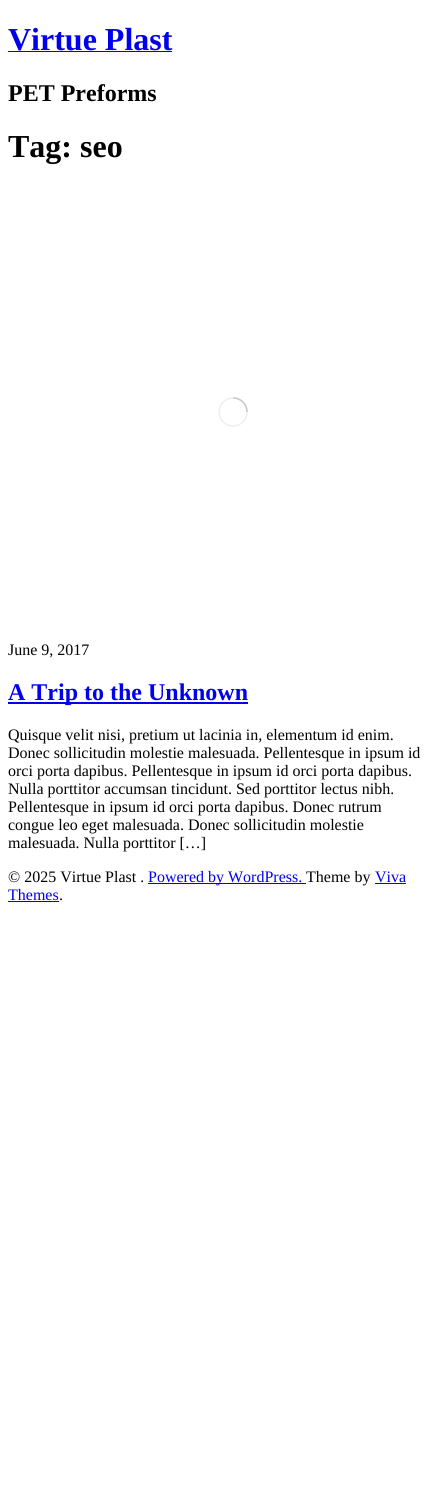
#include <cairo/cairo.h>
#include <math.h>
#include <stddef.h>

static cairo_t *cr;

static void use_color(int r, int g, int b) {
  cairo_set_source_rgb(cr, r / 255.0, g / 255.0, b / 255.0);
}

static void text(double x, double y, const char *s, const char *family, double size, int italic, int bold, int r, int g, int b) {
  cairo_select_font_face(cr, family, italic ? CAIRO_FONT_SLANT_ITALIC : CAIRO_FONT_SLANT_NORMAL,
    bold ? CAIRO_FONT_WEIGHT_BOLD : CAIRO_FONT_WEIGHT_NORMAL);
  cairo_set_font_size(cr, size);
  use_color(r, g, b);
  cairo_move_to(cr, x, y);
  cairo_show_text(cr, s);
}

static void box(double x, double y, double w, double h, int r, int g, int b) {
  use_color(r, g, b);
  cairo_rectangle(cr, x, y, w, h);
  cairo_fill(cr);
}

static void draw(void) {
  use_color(255, 255, 255);
  cairo_paint(cr);
  box(8, 51, 164, 1, 0, 0, 238);
  cairo_arc(cr, 233, 412, 14, 0, 2 * M_PI);
  use_color(239, 239, 239);
  cairo_set_line_width(cr, 1.6);
  cairo_stroke(cr);
  cairo_new_path(cr);
  cairo_move_to(cr, 247, 412);
  cairo_curve_to(cr, 247, 404, 241, 398, 233, 398);
  use_color(202, 202, 202);
  cairo_stroke(cr);
  box(8, 702, 240, 2, 0, 0, 238);
  box(148, 883, 158, 1, 0, 0, 238);
  box(375, 883, 31, 1, 0, 0, 238);
  box(8, 901, 51, 1, 0, 0, 238);
  text(8, 50, "Virtue Plast", "Liberation Serif", 32, 0, 1, 0, 0, 238);
  text(8, 101, "PET Preforms", "Liberation Serif", 24, 0, 1, 0, 0, 0);
  text(8, 157, "Tag: seo", "Liberation Serif", 32, 0, 1, 0, 0, 0);
  text(8, 655, "June 9, 2017", "Liberation Serif", 16, 0, 0, 0, 0, 0);
  text(8, 700, "A Trip to the Unknown", "Liberation Serif", 24, 0, 1, 0, 0, 238);
  text(8, 740, "Quisque velit nisi, pretium ut lacinia in, elementum id enim.", "Liberation Serif", 16, 0, 0, 0, 0, 0);
  text(8, 758, "Donec sollicitudin molestie malesuada. Pellentesque in ipsum id", "Liberation Serif", 16, 0, 0, 0, 0, 0);
  text(8, 776, "orci porta dapibus. Pellentesque in ipsum id orci porta dapibus.", "Liberation Serif", 16, 0, 0, 0, 0, 0);
  text(8, 794, "Nulla porttitor accumsan tincidunt. Sed porttitor lectus nibh.", "Liberation Serif", 16, 0, 0, 0, 0, 0);
  text(8, 812, "Pellentesque in ipsum id orci porta dapibus. Donec rutrum", "Liberation Serif", 16, 0, 0, 0, 0, 0);
  text(8, 830, "congue leo eget malesuada. Donec sollicitudin molestie", "Liberation Serif", 16, 0, 0, 0, 0, 0);
  text(8, 848, "malesuada. Nulla porttitor […]", "Liberation Serif", 16, 0, 0, 0, 0, 0);
  text(8, 882, "© 2025 Virtue Plast .", "Liberation Serif", 16, 0, 0, 0, 0, 0);
  text(148, 882, "Powered by WordPress.", "Liberation Serif", 16, 0, 0, 0, 0, 238);
  text(306, 882, "Theme by", "Liberation Serif", 16, 0, 0, 0, 0, 0);
  text(375, 882, "Viva", "Liberation Serif", 16, 0, 0, 0, 0, 238);
  text(8, 900, "Themes", "Liberation Serif", 16, 0, 0, 0, 0, 238);
  text(59, 900, ".", "Liberation Serif", 16, 0, 0, 0, 0, 0);
}

int main(void) {
  cairo_surface_t *surface = cairo_image_surface_create(CAIRO_FORMAT_RGB24, 432, 1496);
  cr = cairo_create(surface);
  cairo_font_options_t *options = cairo_font_options_create();
  cairo_font_options_set_hint_metrics(options, CAIRO_HINT_METRICS_OFF);
  cairo_font_options_set_hint_style(options, CAIRO_HINT_STYLE_NONE);
  cairo_set_font_options(cr, options);
  cairo_set_miter_limit(cr, 4);
  draw();
  cairo_surface_write_to_png(surface, "out.png");
  cairo_font_options_destroy(options);
  cairo_destroy(cr);
  cairo_surface_destroy(surface);
  return 0;
}
